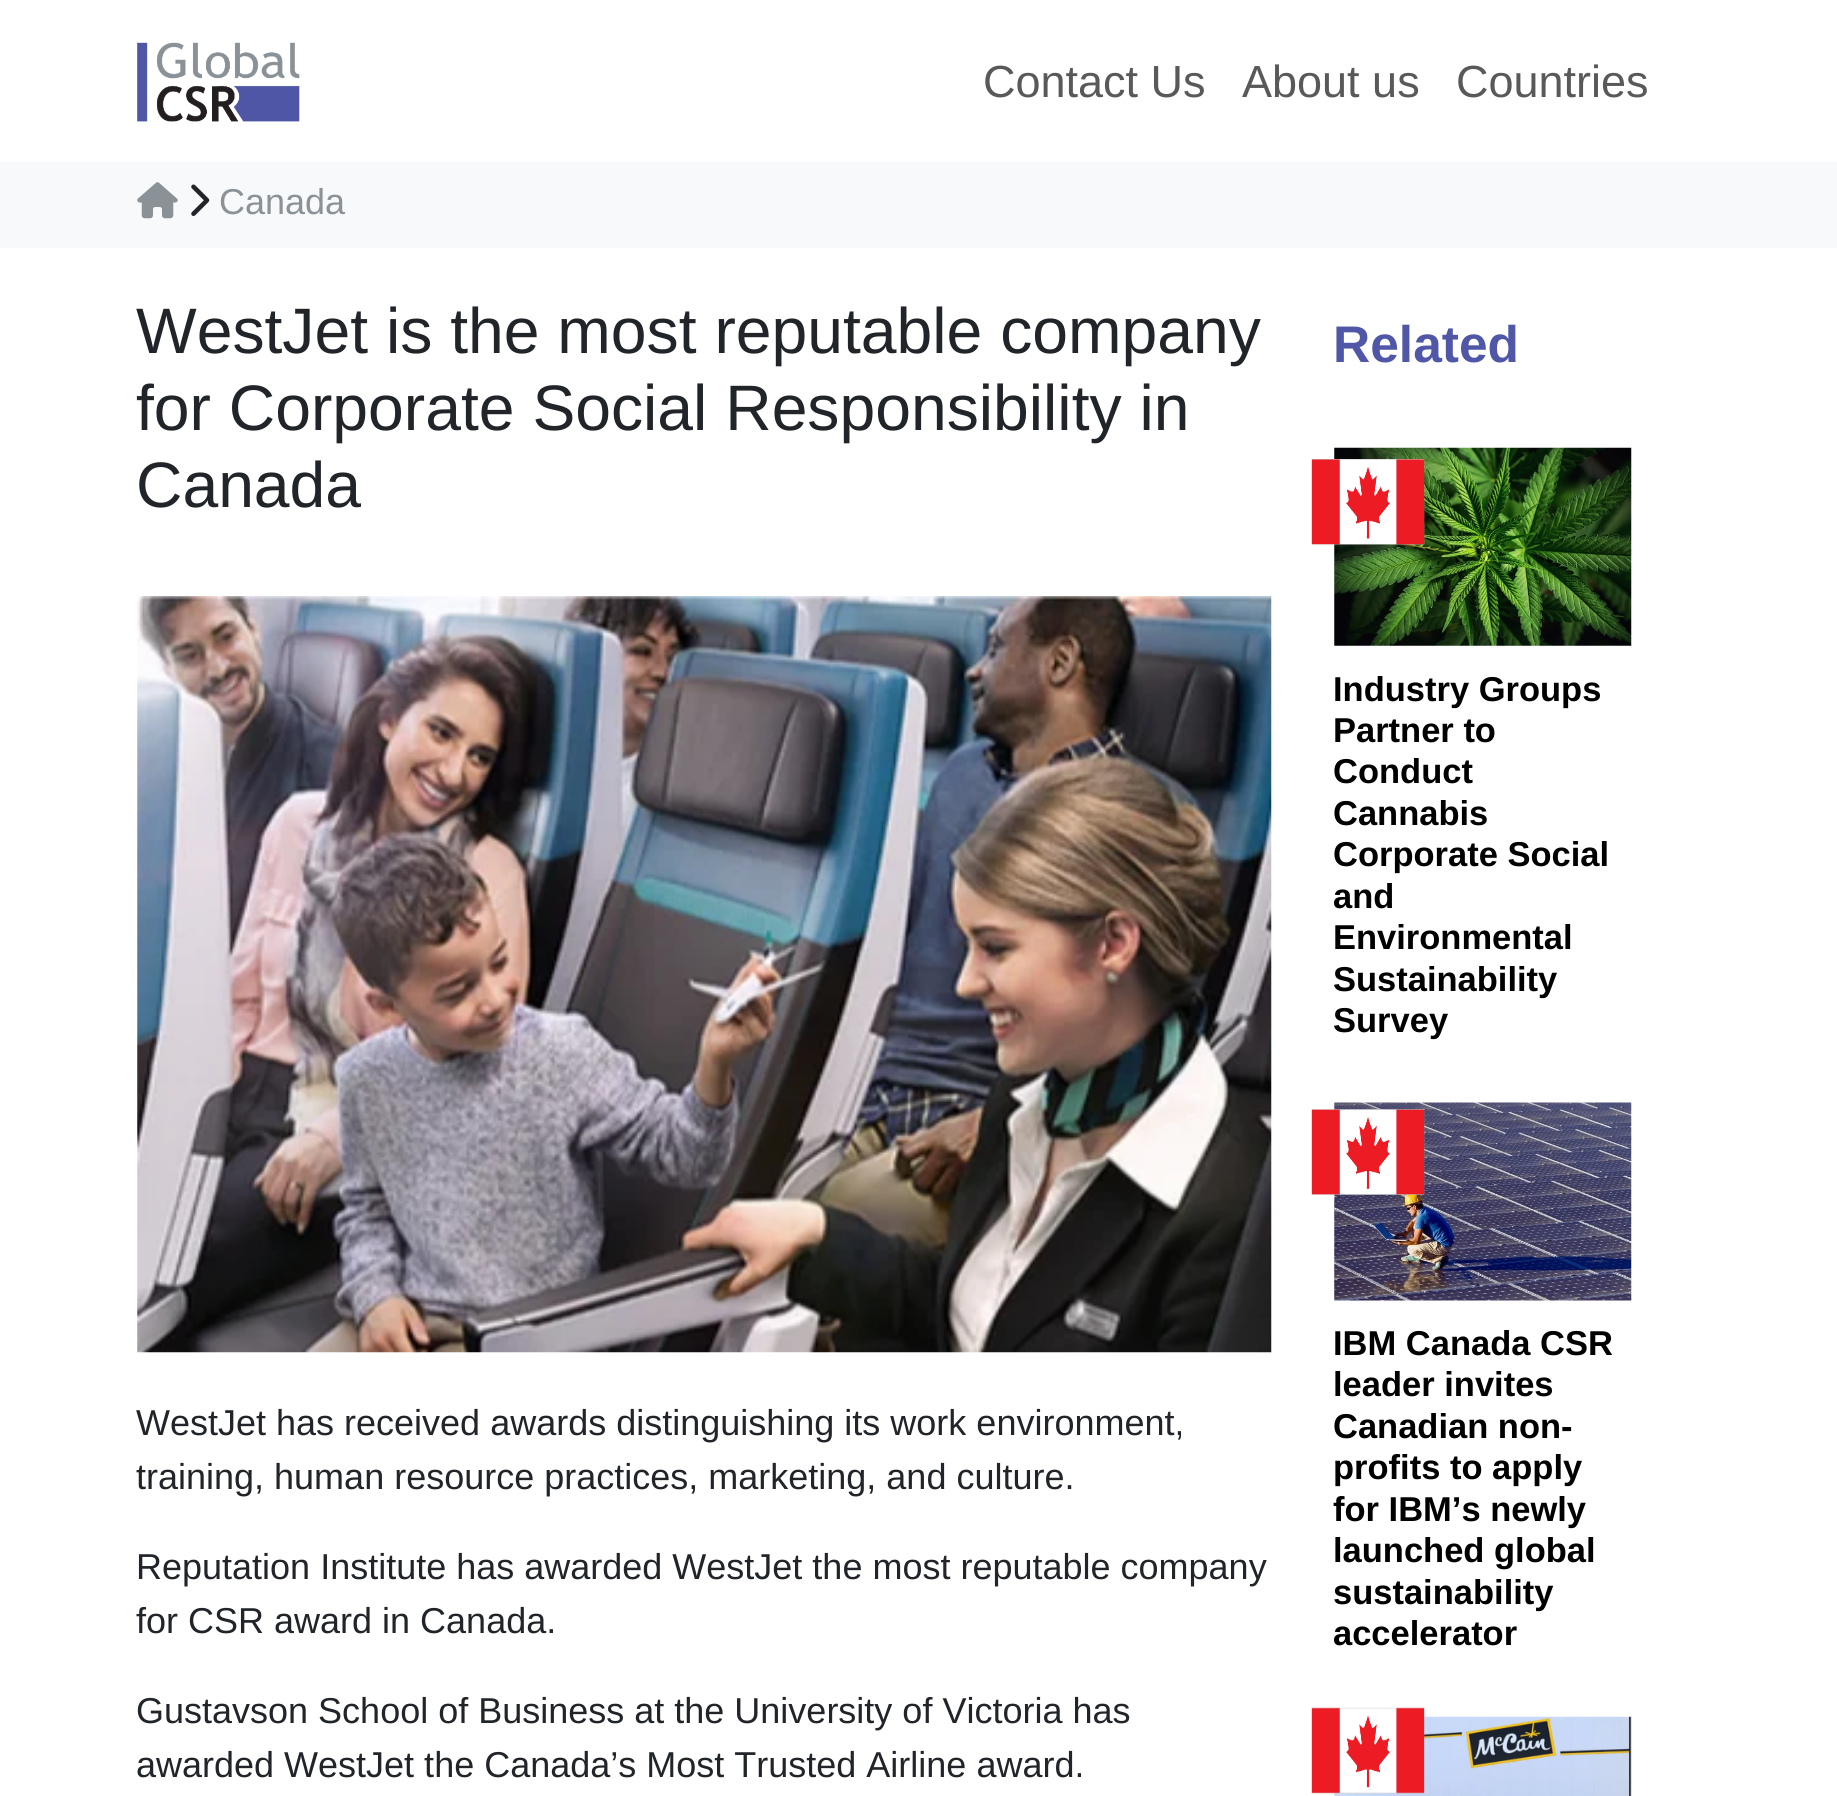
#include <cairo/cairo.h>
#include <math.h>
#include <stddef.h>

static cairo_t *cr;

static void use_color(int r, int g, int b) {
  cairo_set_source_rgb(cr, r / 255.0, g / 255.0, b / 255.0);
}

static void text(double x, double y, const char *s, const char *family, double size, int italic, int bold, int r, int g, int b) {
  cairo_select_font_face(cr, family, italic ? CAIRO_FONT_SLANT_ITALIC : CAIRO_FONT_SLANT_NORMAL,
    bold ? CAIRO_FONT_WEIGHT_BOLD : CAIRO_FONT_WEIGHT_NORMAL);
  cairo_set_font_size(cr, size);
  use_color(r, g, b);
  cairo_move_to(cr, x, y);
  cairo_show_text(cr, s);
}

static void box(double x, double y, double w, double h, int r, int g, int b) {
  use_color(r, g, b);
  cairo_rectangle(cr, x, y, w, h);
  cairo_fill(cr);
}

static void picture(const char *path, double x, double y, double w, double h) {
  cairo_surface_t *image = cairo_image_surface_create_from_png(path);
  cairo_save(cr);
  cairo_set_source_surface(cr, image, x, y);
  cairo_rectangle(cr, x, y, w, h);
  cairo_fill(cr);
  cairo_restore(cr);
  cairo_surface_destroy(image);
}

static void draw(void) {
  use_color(255, 255, 255);
  cairo_paint(cr);
  picture("img_01.png", 137, 42, 163, 80);
  box(0, 162, 1837, 86, 248, 249, 250);
  picture("img_02.png", 137, 182, 41, 37);
  picture("img_03.png", 191, 184, 19, 32);
  picture("img_04.png", 137, 596, 1135, 757);
  picture("img_05.png", 1334, 447, 298, 199);
  picture("img_06.png", 1311, 459, 114, 86);
  picture("img_07.png", 1334, 1102, 298, 199);
  picture("img_08.png", 1311, 1109, 114, 86);
  picture("img_10.png", 1334, 1716, 298, 80);
  picture("img_09.png", 1311, 1707, 114, 87);
  text(983, 97, "Contact Us", "Liberation Sans", 45, 0, 0, 89, 89, 89);
  text(1242, 97, "About us", "Liberation Sans", 45, 0, 0, 89, 89, 89);
  text(1456, 97, "Countries", "Liberation Sans", 45, 0, 0, 89, 89, 89);
  text(219, 214, "Canada", "Liberation Sans", 36, 0, 0, 138, 146, 152);
  text(136, 353, "WestJet is the most reputable company", "Liberation Sans", 64.25, 0, 0, 33, 37, 41);
  text(136, 430, "for Corporate Social Responsibility in", "Liberation Sans", 64.25, 0, 0, 33, 37, 41);
  text(136, 507, "Canada", "Liberation Sans", 64.25, 0, 0, 33, 37, 41);
  text(136, 1435, "WestJet has received awards distinguishing its work environment,", "Liberation Sans", 36, 0, 0, 33, 37, 41);
  text(136, 1489, "training, human resource practices, marketing, and culture.", "Liberation Sans", 36, 0, 0, 33, 37, 41);
  text(136, 1579, "Reputation Institute has awarded WestJet the most reputable company", "Liberation Sans", 36, 0, 0, 33, 37, 41);
  text(136, 1633, "for CSR award in Canada.", "Liberation Sans", 36, 0, 0, 33, 37, 41);
  text(136, 1723, "Gustavson School of Business at the University of Victoria has", "Liberation Sans", 36, 0, 0, 33, 37, 41);
  text(136, 1777, "awarded WestJet the Canada’s Most Trusted Airline award.", "Liberation Sans", 36, 0, 0, 33, 37, 41);
  text(1333, 362, "Related", "Liberation Sans", 51.5, 0, 1, 79, 87, 166);
  text(1333, 701, "Industry Groups", "Liberation Sans", 34.5, 0, 1, 0, 0, 0);
  text(1333, 742, "Partner to", "Liberation Sans", 34.5, 0, 1, 0, 0, 0);
  text(1333, 783, "Conduct", "Liberation Sans", 34.5, 0, 1, 0, 0, 0);
  text(1333, 825, "Cannabis", "Liberation Sans", 34.5, 0, 1, 0, 0, 0);
  text(1333, 866, "Corporate Social", "Liberation Sans", 34.5, 0, 1, 0, 0, 0);
  text(1333, 908, "and", "Liberation Sans", 34.5, 0, 1, 0, 0, 0);
  text(1333, 949, "Environmental", "Liberation Sans", 34.5, 0, 1, 0, 0, 0);
  text(1333, 991, "Sustainability", "Liberation Sans", 34.5, 0, 1, 0, 0, 0);
  text(1333, 1032, "Survey", "Liberation Sans", 34.5, 0, 1, 0, 0, 0);
  text(1333, 1355, "IBM Canada CSR", "Liberation Sans", 34.5, 0, 1, 0, 0, 0);
  text(1333, 1396, "leader invites", "Liberation Sans", 34.5, 0, 1, 0, 0, 0);
  text(1333, 1438, "Canadian non-", "Liberation Sans", 34.5, 0, 1, 0, 0, 0);
  text(1333, 1479, "profits to apply", "Liberation Sans", 34.5, 0, 1, 0, 0, 0);
  text(1333, 1521, "for IBM’s newly", "Liberation Sans", 34.5, 0, 1, 0, 0, 0);
  text(1333, 1562, "launched global", "Liberation Sans", 34.5, 0, 1, 0, 0, 0);
  text(1333, 1604, "sustainability", "Liberation Sans", 34.5, 0, 1, 0, 0, 0);
  text(1333, 1645, "accelerator", "Liberation Sans", 34.5, 0, 1, 0, 0, 0);
}

int main(void) {
  cairo_surface_t *surface = cairo_image_surface_create(CAIRO_FORMAT_RGB24, 1837, 1796);
  cr = cairo_create(surface);
  cairo_font_options_t *options = cairo_font_options_create();
  cairo_font_options_set_hint_metrics(options, CAIRO_HINT_METRICS_OFF);
  cairo_font_options_set_hint_style(options, CAIRO_HINT_STYLE_NONE);
  cairo_set_font_options(cr, options);
  cairo_set_miter_limit(cr, 4);
  draw();
  cairo_surface_write_to_png(surface, "out.png");
  cairo_font_options_destroy(options);
  cairo_destroy(cr);
  cairo_surface_destroy(surface);
  return 0;
}
